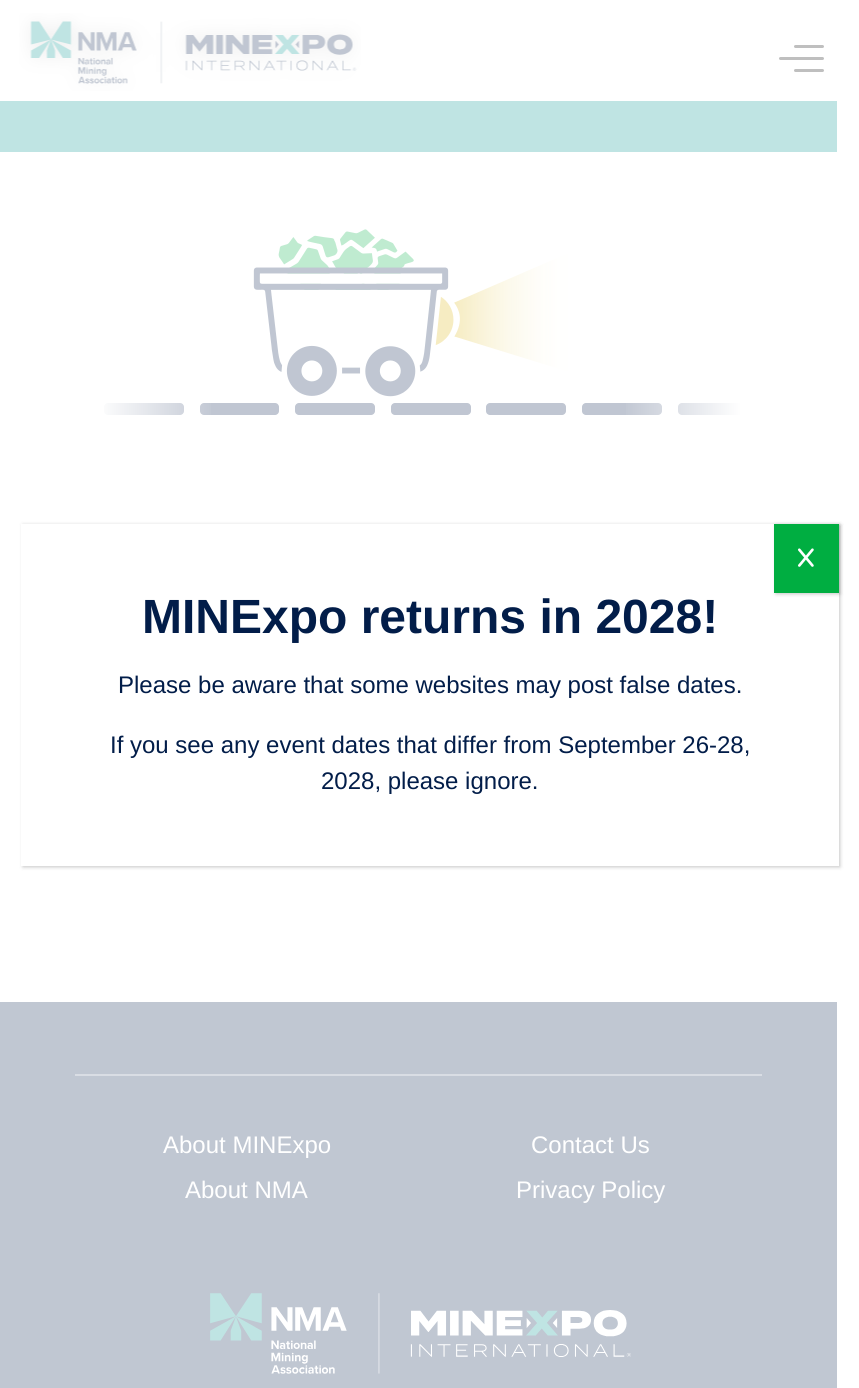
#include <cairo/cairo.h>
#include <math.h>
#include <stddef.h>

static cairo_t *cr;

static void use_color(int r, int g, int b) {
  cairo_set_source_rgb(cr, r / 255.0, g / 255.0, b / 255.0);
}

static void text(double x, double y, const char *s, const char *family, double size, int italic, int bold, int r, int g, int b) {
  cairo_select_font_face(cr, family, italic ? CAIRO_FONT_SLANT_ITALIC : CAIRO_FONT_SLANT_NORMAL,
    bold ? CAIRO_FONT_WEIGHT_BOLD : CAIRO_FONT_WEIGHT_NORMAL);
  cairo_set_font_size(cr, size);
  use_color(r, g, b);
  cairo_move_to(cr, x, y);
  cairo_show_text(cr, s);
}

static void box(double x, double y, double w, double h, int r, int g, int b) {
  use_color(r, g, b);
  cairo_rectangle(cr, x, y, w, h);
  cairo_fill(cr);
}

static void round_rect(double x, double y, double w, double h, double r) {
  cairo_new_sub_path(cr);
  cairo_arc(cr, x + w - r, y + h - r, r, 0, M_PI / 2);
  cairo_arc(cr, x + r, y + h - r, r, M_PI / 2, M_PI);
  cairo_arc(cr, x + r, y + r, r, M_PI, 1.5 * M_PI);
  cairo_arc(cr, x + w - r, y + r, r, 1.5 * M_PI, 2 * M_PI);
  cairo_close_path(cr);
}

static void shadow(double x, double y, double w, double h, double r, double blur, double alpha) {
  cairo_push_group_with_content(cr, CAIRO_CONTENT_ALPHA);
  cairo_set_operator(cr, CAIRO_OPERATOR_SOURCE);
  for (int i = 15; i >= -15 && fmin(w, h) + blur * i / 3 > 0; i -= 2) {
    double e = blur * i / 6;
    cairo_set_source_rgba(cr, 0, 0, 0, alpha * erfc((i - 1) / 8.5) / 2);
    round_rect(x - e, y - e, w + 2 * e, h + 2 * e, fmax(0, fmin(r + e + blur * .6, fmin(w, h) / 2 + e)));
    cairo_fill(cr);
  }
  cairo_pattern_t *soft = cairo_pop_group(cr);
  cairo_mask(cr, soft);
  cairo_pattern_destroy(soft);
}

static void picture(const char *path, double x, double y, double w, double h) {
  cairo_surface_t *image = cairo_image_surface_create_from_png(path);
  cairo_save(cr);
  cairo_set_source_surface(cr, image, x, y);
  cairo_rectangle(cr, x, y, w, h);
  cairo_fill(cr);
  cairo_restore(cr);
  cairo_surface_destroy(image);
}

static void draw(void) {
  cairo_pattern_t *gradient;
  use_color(255, 255, 255);
  cairo_paint(cr);
  picture("img_01.png", 19, 13, 342, 78);
  use_color(191, 191, 191);
  round_rect(794, 45, 30, 3, 1.5);
  cairo_fill(cr);
  round_rect(779, 57, 45, 3, 1.5);
  cairo_fill(cr);
  round_rect(794, 69, 30, 3, 1.5);
  cairo_fill(cr);
  box(0, 101, 837, 51, 191, 228, 227);
  picture("img_02.png", 104, 229, 636, 186);
  gradient = cairo_pattern_create_linear(96, 332, 216, 332);
  cairo_pattern_add_color_stop_rgba(gradient, 0, 1, 1, 1, 1);
  cairo_pattern_add_color_stop_rgba(gradient, 1, 1, 1, 1, 0);
  cairo_set_source(cr, gradient);
  cairo_pattern_destroy(gradient);
  cairo_rectangle(cr, 104, 403, 107, 12);
  cairo_fill(cr);
  gradient = cairo_pattern_create_linear(621, 332, 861, 332);
  cairo_pattern_add_color_stop_rgba(gradient, 0, 1, 1, 1, 0);
  cairo_pattern_add_color_stop_rgba(gradient, 0.5, 1, 1, 1, 1);
  cairo_set_source(cr, gradient);
  cairo_pattern_destroy(gradient);
  cairo_rectangle(cr, 626, 403, 114, 12);
  cairo_fill(cr);
  use_color(2, 2, 2);
  shadow(23, 525, 817, 342, 0, 2, 0.23);
  box(21, 524, 818, 342, 255, 255, 255);
  use_color(2, 2, 2);
  shadow(776, 525, 64, 69, 0, 2, 0.23);
  box(774, 524, 65, 69, 0, 174, 65);
  picture("img_03.png", 798, 548, 16, 19);
  box(0, 1002, 837, 386, 192, 199, 210);
  box(75, 1074, 687, 2, 217, 221, 228);
  picture("img_04.png", 210, 1293, 421, 81);
  text(142, 633, "MINExpo returns in 2028!", "Liberation Sans", 48, 0, 1, 2, 29, 73);
  text(118, 693, "Please be aware that some websites may post false dates.", "Liberation Sans", 24, 0, 0, 2, 29, 73);
  text(110, 753, "If you see any event dates that differ from September 26-28,", "Liberation Sans", 24, 0, 0, 2, 29, 73);
  text(321, 789, "2028, please ignore.", "Liberation Sans", 24, 0, 0, 2, 29, 73);
  text(163, 1153, "About MINExpo", "Liberation Sans", 24, 0, 0, 255, 255, 255);
  text(531, 1153, "Contact Us", "Liberation Sans", 24, 0, 0, 255, 255, 255);
  text(185, 1198, "About NMA", "Liberation Sans", 24, 0, 0, 255, 255, 255);
  text(516, 1198, "Privacy Policy", "Liberation Sans", 24, 0, 0, 255, 255, 255);
}

int main(void) {
  cairo_surface_t *surface = cairo_image_surface_create(CAIRO_FORMAT_RGB24, 859, 1388);
  cr = cairo_create(surface);
  cairo_font_options_t *options = cairo_font_options_create();
  cairo_font_options_set_hint_metrics(options, CAIRO_HINT_METRICS_OFF);
  cairo_font_options_set_hint_style(options, CAIRO_HINT_STYLE_NONE);
  cairo_set_font_options(cr, options);
  cairo_set_miter_limit(cr, 4);
  draw();
  cairo_surface_write_to_png(surface, "out.png");
  cairo_font_options_destroy(options);
  cairo_destroy(cr);
  cairo_surface_destroy(surface);
  return 0;
}
